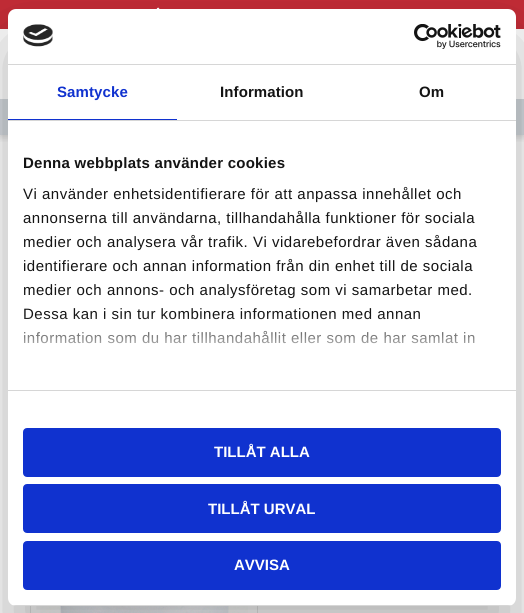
#include <cairo/cairo.h>
#include <math.h>
#include <stddef.h>

static cairo_t *cr;

static void use_color(int r, int g, int b) {
  cairo_set_source_rgb(cr, r / 255.0, g / 255.0, b / 255.0);
}

static void text(double x, double y, const char *s, const char *family, double size, int italic, int bold, int r, int g, int b) {
  cairo_select_font_face(cr, family, italic ? CAIRO_FONT_SLANT_ITALIC : CAIRO_FONT_SLANT_NORMAL,
    bold ? CAIRO_FONT_WEIGHT_BOLD : CAIRO_FONT_WEIGHT_NORMAL);
  cairo_set_font_size(cr, size);
  use_color(r, g, b);
  cairo_move_to(cr, x, y);
  cairo_show_text(cr, s);
}

static void spaced_text(double x, double y, const char *s, double letter, double word) {
  cairo_move_to(cr, x, y);
  while (*s) {
    char ch[5] = {0};
    int n = 0;
    do ch[n++] = *s++; while ((*s & 0xC0) == 0x80);
    cairo_show_text(cr, ch);
    cairo_rel_move_to(cr, letter + word * (*ch == ' '), 0);
  }
}

static void box(double x, double y, double w, double h, int r, int g, int b) {
  use_color(r, g, b);
  cairo_rectangle(cr, x, y, w, h);
  cairo_fill(cr);
}

static void round_rect(double x, double y, double w, double h, double r) {
  cairo_new_sub_path(cr);
  cairo_arc(cr, x + w - r, y + h - r, r, 0, M_PI / 2);
  cairo_arc(cr, x + r, y + h - r, r, M_PI / 2, M_PI);
  cairo_arc(cr, x + r, y + r, r, M_PI, 1.5 * M_PI);
  cairo_arc(cr, x + w - r, y + r, r, 1.5 * M_PI, 2 * M_PI);
  cairo_close_path(cr);
}

static void shadow(double x, double y, double w, double h, double r, double blur, double alpha) {
  cairo_push_group_with_content(cr, CAIRO_CONTENT_ALPHA);
  cairo_set_operator(cr, CAIRO_OPERATOR_SOURCE);
  for (int i = 15; i >= -15 && fmin(w, h) + blur * i / 3 > 0; i -= 2) {
    double e = blur * i / 6;
    cairo_set_source_rgba(cr, 0, 0, 0, alpha * erfc((i - 1) / 8.5) / 2);
    round_rect(x - e, y - e, w + 2 * e, h + 2 * e, fmax(0, fmin(r + e + blur * .6, fmin(w, h) / 2 + e)));
    cairo_fill(cr);
  }
  cairo_pattern_t *soft = cairo_pop_group(cr);
  cairo_mask(cr, soft);
  cairo_pattern_destroy(soft);
}

static void picture(const char *path, double x, double y, double w, double h) {
  cairo_surface_t *image = cairo_image_surface_create_from_png(path);
  cairo_save(cr);
  cairo_set_source_surface(cr, image, x, y);
  cairo_rectangle(cr, x, y, w, h);
  cairo_fill(cr);
  cairo_restore(cr);
  cairo_surface_destroy(image);
}

static void draw(void) {
  cairo_pattern_t *gradient;
  use_color(255, 255, 255);
  cairo_paint(cr);
  box(0, 99, 524, 36, 212, 217, 222);
  cairo_save(cr);
  cairo_rectangle(cr, 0, 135, 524, 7);
  cairo_clip(cr);
  use_color(0, 0, 0);
  shadow(0, 2, 524, 135, 0, 4, 0.17);
  cairo_restore(cr);
  box(0, 0, 524, 29, 196, 44, 55);
  picture("img_01.png", 156, 7, 4, 2);
  cairo_rectangle(cr, 30.5, 478.5, 227, 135);
  use_color(230, 230, 230);
  cairo_set_line_width(cr, 1);
  cairo_stroke(cr);
  picture("img_02.png", 40, 606, 208, 7);
  use_color(0, 0, 0);
  shadow(8, 41, 508, 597, 8, 34, 0.3);
  use_color(255, 255, 255);
  round_rect(8, 9, 508, 597, 8);
  cairo_fill(cr);
  box(8, 64, 508, 1, 214, 214, 214);
  picture("img_03.png", 23, 24, 30, 23);
  picture("img_04.png", 414, 24, 87, 25);
  box(8, 120, 508, 1, 214, 214, 214);
  box(8, 119, 169, 1, 16, 50, 207);
  box(8, 390, 508, 1, 214, 214, 214);
  cairo_save(cr);
  round_rect(8, 9, 508, 597, 8);
  cairo_clip(cr);
  box(8, 605, 508, 1, 214, 214, 214);
  cairo_restore(cr);
  use_color(16, 50, 207);
  round_rect(24, 429, 476, 47, 3);
  cairo_fill_preserve(cr);
  cairo_set_line_width(cr, 2);
  cairo_stroke(cr);
  round_rect(24, 485, 476, 47, 3);
  cairo_fill_preserve(cr);
  cairo_stroke(cr);
  round_rect(24, 542, 476, 47, 3);
  cairo_fill_preserve(cr);
  cairo_stroke(cr);
  cairo_select_font_face(cr, "Liberation Sans", CAIRO_FONT_SLANT_NORMAL, CAIRO_FONT_WEIGHT_BOLD);
  cairo_set_font_size(cr, 15);
  spaced_text(57, 97, "Samtycke", 0.1, 0);
  use_color(20, 20, 20);
  spaced_text(220, 97, "Information", 0.1, 0);
  spaced_text(419, 97, "Om", 0.1, 0);
  spaced_text(23, 168, "Denna webbplats använder cookies", 0.25, 0);
  cairo_select_font_face(cr, "Liberation Sans", CAIRO_FONT_SLANT_NORMAL, CAIRO_FONT_WEIGHT_NORMAL);
  spaced_text(23, 199, "Vi använder enhetsidentifierare för att anpassa innehållet och", 0.5, 0);
  spaced_text(23, 223, "annonserna till användarna, tillhandahålla funktioner för sociala", 0.5, 0);
  spaced_text(23, 247, "medier och analysera vår trafik. Vi vidarebefordrar även sådana", 0.5, 0);
  spaced_text(23, 271, "identifierare och annan information från din enhet till de sociala", 0.5, 0);
  spaced_text(23, 295, "medier och annons- och analysföretag som vi samarbetar med.", 0.5, 0);
  spaced_text(23, 319, "Dessa kan i sin tur kombinera informationen med annan", 0.5, 0);
  spaced_text(23, 343, "information som du har tillhandahållit eller som de har samlat in", 0.5, 0);
  gradient = cairo_pattern_create_linear(256, 390, 256, 315);
  cairo_pattern_add_color_stop_rgba(gradient, 0, 1, 1, 1, 1);
  cairo_pattern_add_color_stop_rgba(gradient, 0.5, 1, 1, 1, 0.8);
  cairo_pattern_add_color_stop_rgba(gradient, 1, 1, 1, 1, 0);
  cairo_set_source(cr, gradient);
  cairo_pattern_destroy(gradient);
  cairo_rectangle(cr, 24, 316, 451, 28);
  cairo_fill(cr);
  text(214, 457, "TILLÅT ALLA", "Liberation Sans", 15, 0, 1, 255, 255, 255);
  text(208, 514, "TILLÅT URVAL", "Liberation Sans", 15, 0, 1, 255, 255, 255);
  text(234, 570, "AVVISA", "Liberation Sans", 15, 0, 1, 255, 255, 255);
}

int main(void) {
  cairo_surface_t *surface = cairo_image_surface_create(CAIRO_FORMAT_RGB24, 524, 613);
  cr = cairo_create(surface);
  cairo_font_options_t *options = cairo_font_options_create();
  cairo_font_options_set_hint_metrics(options, CAIRO_HINT_METRICS_OFF);
  cairo_font_options_set_hint_style(options, CAIRO_HINT_STYLE_NONE);
  cairo_set_font_options(cr, options);
  cairo_set_miter_limit(cr, 4);
  draw();
  cairo_surface_write_to_png(surface, "out.png");
  cairo_font_options_destroy(options);
  cairo_destroy(cr);
  cairo_surface_destroy(surface);
  return 0;
}
